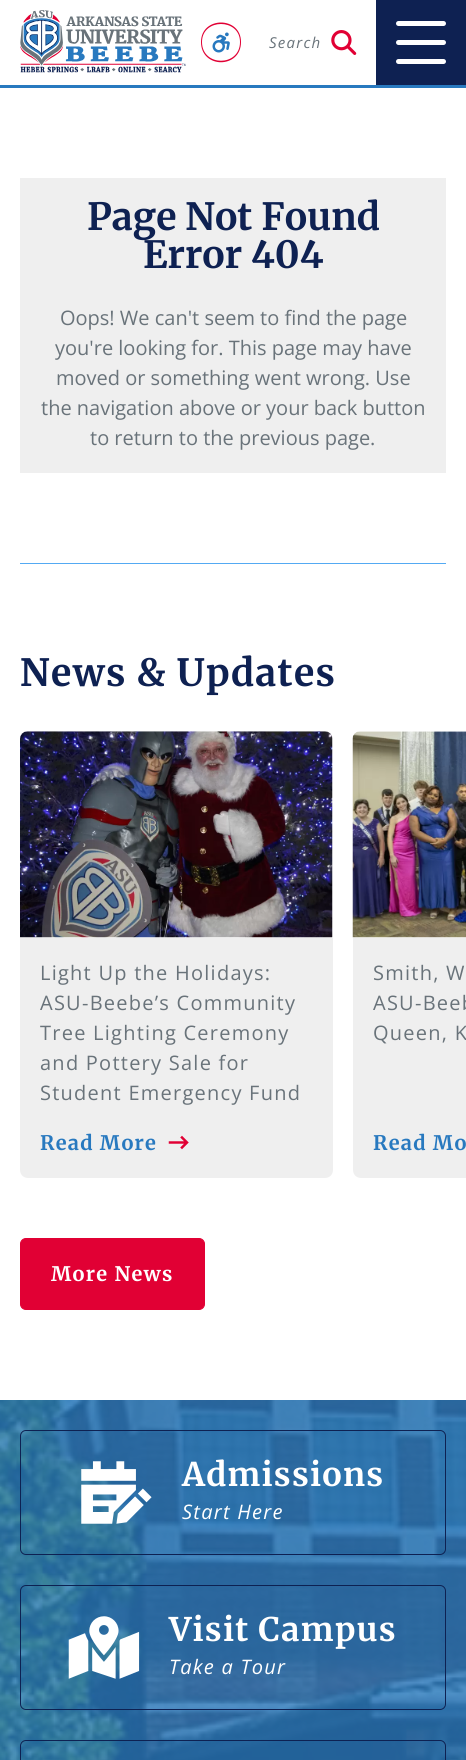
#include <cairo/cairo.h>
#include <math.h>
#include <stddef.h>

static cairo_t *cr;

static void use_color(int r, int g, int b) {
  cairo_set_source_rgb(cr, r / 255.0, g / 255.0, b / 255.0);
}

static void text(double x, double y, const char *s, const char *family, double size, int italic, int bold, int r, int g, int b) {
  cairo_select_font_face(cr, family, italic ? CAIRO_FONT_SLANT_ITALIC : CAIRO_FONT_SLANT_NORMAL,
    bold ? CAIRO_FONT_WEIGHT_BOLD : CAIRO_FONT_WEIGHT_NORMAL);
  cairo_set_font_size(cr, size);
  use_color(r, g, b);
  cairo_move_to(cr, x, y);
  cairo_show_text(cr, s);
}

static void spaced_text(double x, double y, const char *s, double letter, double word) {
  cairo_move_to(cr, x, y);
  while (*s) {
    char ch[5] = {0};
    int n = 0;
    do ch[n++] = *s++; while ((*s & 0xC0) == 0x80);
    cairo_show_text(cr, ch);
    cairo_rel_move_to(cr, letter + word * (*ch == ' '), 0);
  }
}

static void box(double x, double y, double w, double h, int r, int g, int b) {
  use_color(r, g, b);
  cairo_rectangle(cr, x, y, w, h);
  cairo_fill(cr);
}

static void round_rect(double x, double y, double w, double h, double r) {
  cairo_new_sub_path(cr);
  cairo_arc(cr, x + w - r, y + h - r, r, 0, M_PI / 2);
  cairo_arc(cr, x + r, y + h - r, r, M_PI / 2, M_PI);
  cairo_arc(cr, x + r, y + r, r, M_PI, 1.5 * M_PI);
  cairo_arc(cr, x + w - r, y + r, r, 1.5 * M_PI, 2 * M_PI);
  cairo_close_path(cr);
}

static void picture(const char *path, double x, double y, double w, double h) {
  cairo_surface_t *image = cairo_image_surface_create_from_png(path);
  cairo_save(cr);
  cairo_set_source_surface(cr, image, x, y);
  cairo_rectangle(cr, x, y, w, h);
  cairo_fill(cr);
  cairo_restore(cr);
  cairo_surface_destroy(image);
}

static void draw(void) {
  use_color(255, 255, 255);
  cairo_paint(cr);
  box(0, 85, 466, 3, 40, 121, 191);
  picture("img_01.png", 20, 10, 166, 63);
  use_color(225, 0, 52);
  cairo_new_path(cr);
  cairo_move_to(cr, 240, 42);
  cairo_curve_to(cr, 240, 18, 202, 18, 202, 42);
  cairo_curve_to(cr, 202, 67, 240, 67, 240, 42);
  cairo_close_path(cr);
  cairo_move_to(cr, 201, 42);
  cairo_curve_to(cr, 201, 16, 241, 16, 241, 42);
  cairo_curve_to(cr, 241, 69, 201, 69, 201, 42);
  cairo_close_path(cr);
  cairo_fill(cr);
  picture("img_02.png", 212, 32, 18, 21);
  picture("img_03.png", 331, 30, 26, 25);
  box(376, 0, 90, 85, 14, 33, 82);
  use_color(255, 255, 255);
  round_rect(396, 40, 50, 5, 2.5);
  cairo_fill(cr);
  round_rect(396, 21, 50, 5, 2.5);
  cairo_fill(cr);
  round_rect(396, 59, 50, 5, 2.5);
  cairo_fill(cr);
  box(20, 178, 426, 295, 239, 239, 239);
  box(20, 563, 426, 1, 84, 170, 243);
  picture("img_04.png", 20, 731, 313, 207);
  use_color(239, 239, 239);
  cairo_new_path(cr);
  cairo_move_to(cr, 20, 938);
  cairo_line_to(cr, 333, 938);
  cairo_line_to(cr, 333, 1170);
  cairo_curve_to(cr, 333, 1174.5, 329.5, 1178, 325, 1178);
  cairo_line_to(cr, 28, 1178);
  cairo_curve_to(cr, 23.5, 1178, 20, 1174.5, 20, 1170);
  cairo_close_path(cr);
  cairo_fill(cr);
  picture("img_05.png", 168, 1135, 21, 15);
  picture("img_06.png", 352, 731, 114, 207);
  cairo_new_path(cr);
  cairo_move_to(cr, 353, 938);
  cairo_line_to(cr, 466, 938);
  cairo_line_to(cr, 466, 1178);
  cairo_line_to(cr, 361, 1178);
  cairo_curve_to(cr, 356.5, 1178, 353, 1174.5, 353, 1170);
  cairo_close_path(cr);
  cairo_fill(cr);
  use_color(225, 0, 52);
  round_rect(20.5, 1238.5, 184, 71, 5.5);
  cairo_fill_preserve(cr);
  cairo_set_line_width(cr, 1);
  cairo_stroke(cr);
  picture("img_07.png", 0, 1400, 466, 360);
  round_rect(20.5, 1430.5, 425, 124, 5.5);
  use_color(14, 33, 82);
  cairo_stroke(cr);
  picture("img_08.png", 81, 1461, 71, 63);
  round_rect(20.5, 1585.5, 425, 124, 5.5);
  cairo_stroke(cr);
  picture("img_09.png", 68, 1616, 72, 63);
  round_rect(20.5, 1740.5, 425, 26, 5.5);
  cairo_stroke(cr);
  cairo_select_font_face(cr, "Open Sans", CAIRO_FONT_SLANT_ITALIC, CAIRO_FONT_WEIGHT_NORMAL);
  cairo_set_font_size(cr, 15);
  use_color(105, 115, 122);
  spaced_text(269, 48, "Search", 1.25, 0);
  text(87, 230, "Page Not Found", "Merriweather", 37.5, 0, 1, 14, 33, 82);
  text(143, 268, "Error 404", "Merriweather", 37.5, 0, 1, 14, 33, 82);
  text(60, 325, "Oops! We can't seem to find the page", "Open Sans", 20, 0, 0, 105, 115, 122);
  text(55, 355, "you're looking for. This page may have", "Open Sans", 20, 0, 0, 105, 115, 122);
  text(56, 385, "moved or something went wrong. Use", "Open Sans", 20, 0, 0, 105, 115, 122);
  text(41, 415, "the navigation above or your back button", "Open Sans", 20, 0, 0, 105, 115, 122);
  text(90, 445, "to return to the previous page.", "Open Sans", 20, 0, 0, 105, 115, 122);
  cairo_select_font_face(cr, "Merriweather", CAIRO_FONT_SLANT_NORMAL, CAIRO_FONT_WEIGHT_BOLD);
  cairo_set_font_size(cr, 37.5);
  use_color(14, 33, 82);
  spaced_text(20, 686, "News & Updates", 1.25, 0);
  cairo_select_font_face(cr, "Open Sans", CAIRO_FONT_SLANT_NORMAL, CAIRO_FONT_WEIGHT_NORMAL);
  cairo_set_font_size(cr, 20);
  use_color(105, 115, 122);
  spaced_text(40, 980, "Light Up the Holidays:", 1.25, 0);
  spaced_text(40, 1010, "ASU-Beebe’s Community", 1.25, 0);
  spaced_text(40, 1040, "Tree Lighting Ceremony", 1.25, 0);
  spaced_text(40, 1070, "and Pottery Sale for", 1.25, 0);
  spaced_text(40, 1100, "Student Emergency Fund", 1.25, 0);
  cairo_select_font_face(cr, "Merriweather", CAIRO_FONT_SLANT_NORMAL, CAIRO_FONT_WEIGHT_BOLD);
  use_color(40, 121, 191);
  spaced_text(40, 1150, "Read More", 1.25, 0);
  cairo_select_font_face(cr, "Open Sans", CAIRO_FONT_SLANT_NORMAL, CAIRO_FONT_WEIGHT_NORMAL);
  use_color(105, 115, 122);
  spaced_text(373, 980, "Smith, W", 1.25, 0);
  spaced_text(373, 1010, "ASU-Beeb", 1.25, 0);
  spaced_text(373, 1040, "Queen, K", 1.25, 0);
  cairo_select_font_face(cr, "Merriweather", CAIRO_FONT_SLANT_NORMAL, CAIRO_FONT_WEIGHT_BOLD);
  use_color(40, 121, 191);
  spaced_text(373, 1150, "Read Mo", 1.25, 0);
  use_color(255, 255, 255);
  spaced_text(51, 1281, "More News", 1.25, 0);
  cairo_set_font_size(cr, 32.5);
  spaced_text(182, 1486, "Admissions", 1.25, 0);
  cairo_select_font_face(cr, "Open Sans", CAIRO_FONT_SLANT_ITALIC, CAIRO_FONT_WEIGHT_NORMAL);
  cairo_set_font_size(cr, 20);
  spaced_text(182, 1519, "Start Here", 1.25, 0);
  cairo_select_font_face(cr, "Merriweather", CAIRO_FONT_SLANT_NORMAL, CAIRO_FONT_WEIGHT_BOLD);
  cairo_set_font_size(cr, 32.5);
  spaced_text(169, 1641, "Visit Campus", 1.25, 0);
  cairo_select_font_face(cr, "Open Sans", CAIRO_FONT_SLANT_ITALIC, CAIRO_FONT_WEIGHT_NORMAL);
  cairo_set_font_size(cr, 20);
  spaced_text(169, 1674, "Take a Tour", 1.25, 0);
}

int main(void) {
  cairo_surface_t *surface = cairo_image_surface_create(CAIRO_FORMAT_RGB24, 466, 1760);
  cr = cairo_create(surface);
  cairo_font_options_t *options = cairo_font_options_create();
  cairo_font_options_set_hint_metrics(options, CAIRO_HINT_METRICS_OFF);
  cairo_font_options_set_hint_style(options, CAIRO_HINT_STYLE_NONE);
  cairo_set_font_options(cr, options);
  cairo_set_miter_limit(cr, 4);
  draw();
  cairo_surface_write_to_png(surface, "out.png");
  cairo_font_options_destroy(options);
  cairo_destroy(cr);
  cairo_surface_destroy(surface);
  return 0;
}
